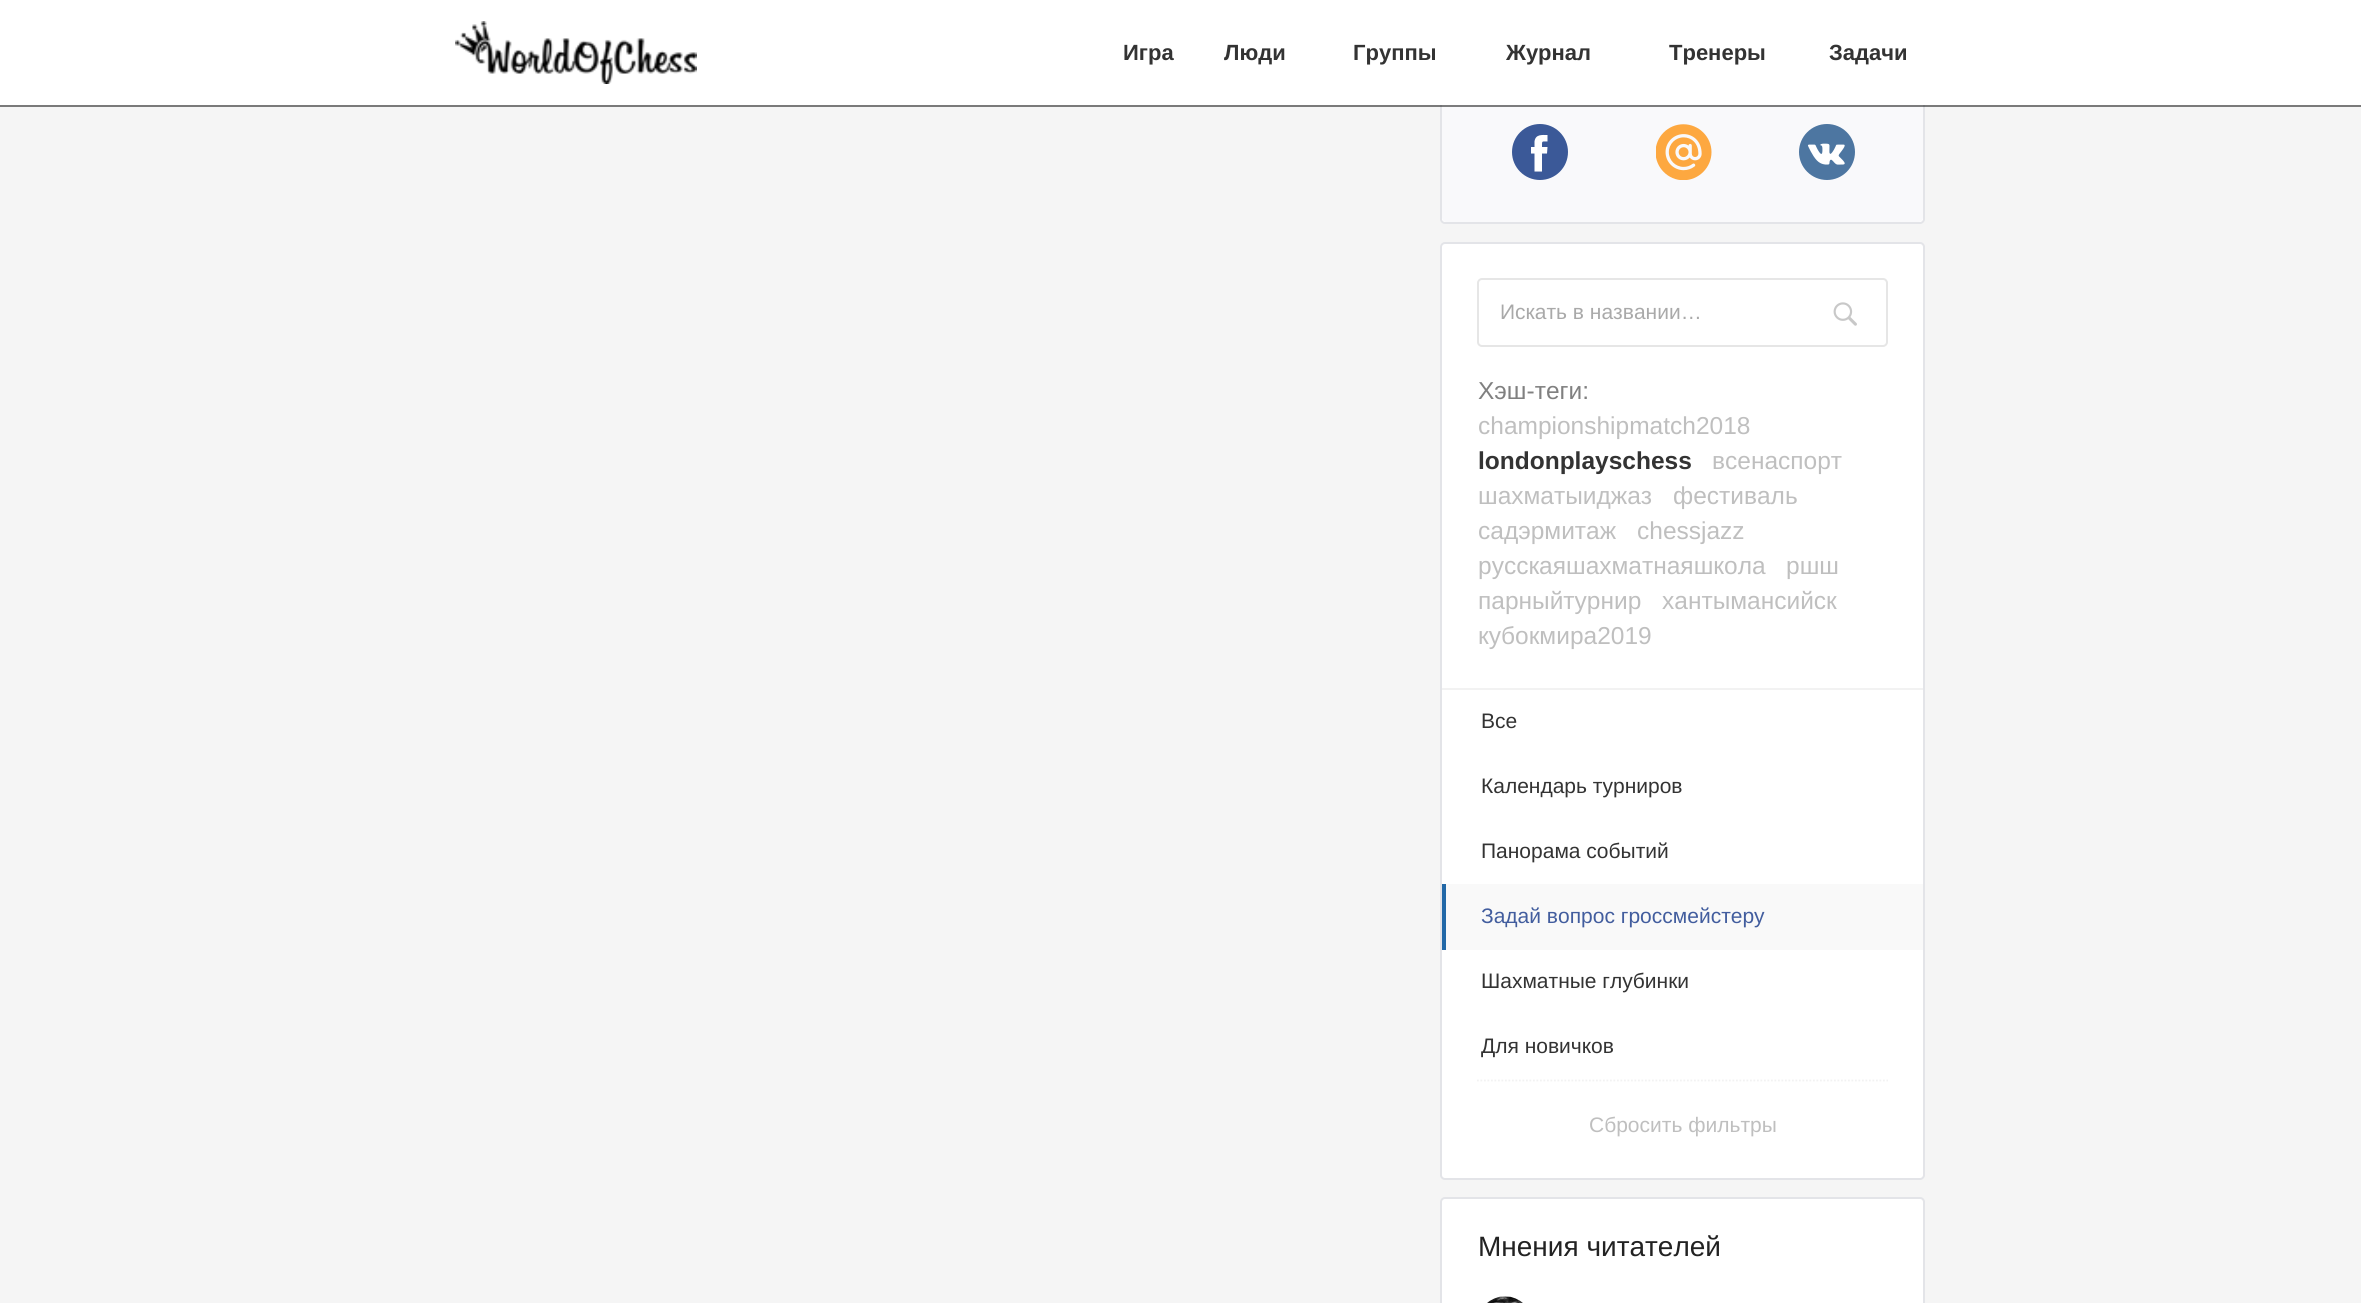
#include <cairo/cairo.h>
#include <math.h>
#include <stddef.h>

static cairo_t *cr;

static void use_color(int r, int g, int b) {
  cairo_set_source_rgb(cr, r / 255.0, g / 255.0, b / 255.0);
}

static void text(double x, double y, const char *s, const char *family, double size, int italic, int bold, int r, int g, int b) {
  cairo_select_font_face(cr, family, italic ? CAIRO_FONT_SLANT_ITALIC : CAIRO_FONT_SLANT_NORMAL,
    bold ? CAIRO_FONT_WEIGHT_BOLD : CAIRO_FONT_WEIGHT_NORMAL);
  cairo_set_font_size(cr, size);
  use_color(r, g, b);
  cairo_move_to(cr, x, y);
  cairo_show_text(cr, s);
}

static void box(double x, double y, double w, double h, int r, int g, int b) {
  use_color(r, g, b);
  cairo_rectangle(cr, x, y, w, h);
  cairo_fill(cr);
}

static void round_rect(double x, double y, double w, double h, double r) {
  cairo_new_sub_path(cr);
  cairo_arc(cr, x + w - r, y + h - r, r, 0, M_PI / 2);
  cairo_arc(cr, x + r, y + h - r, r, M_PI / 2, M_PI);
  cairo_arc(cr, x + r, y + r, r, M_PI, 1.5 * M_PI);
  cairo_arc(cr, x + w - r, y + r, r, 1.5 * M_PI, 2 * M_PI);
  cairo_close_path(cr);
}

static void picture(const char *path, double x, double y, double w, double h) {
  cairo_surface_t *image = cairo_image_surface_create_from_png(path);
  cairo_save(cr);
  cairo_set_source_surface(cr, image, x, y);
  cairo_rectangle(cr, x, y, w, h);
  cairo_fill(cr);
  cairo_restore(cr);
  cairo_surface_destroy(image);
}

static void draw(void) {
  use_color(245, 245, 245);
  cairo_paint(cr);
  use_color(255, 255, 255);
  round_rect(1441, -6, 483, 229, 4);
  cairo_fill_preserve(cr);
  use_color(227, 228, 232);
  cairo_stroke(cr);
  use_color(249, 249, 251);
  cairo_new_path(cr);
  cairo_move_to(cr, 1442, 88);
  cairo_line_to(cr, 1923, 88);
  cairo_line_to(cr, 1923, 217);
  cairo_curve_to(cr, 1923, 220, 1921, 222, 1918, 222);
  cairo_line_to(cr, 1447, 222);
  cairo_curve_to(cr, 1444, 222, 1442, 220, 1442, 217);
  cairo_close_path(cr);
  cairo_fill(cr);
  cairo_set_source_rgba(cr, 0, 0, 0, 0.5);
  cairo_new_path(cr);
  cairo_move_to(cr, 0, 105);
  cairo_line_to(cr, 0, 107);
  cairo_line_to(cr, 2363, 107);
  cairo_line_to(cr, 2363, 2);
  cairo_line_to(cr, 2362, 2);
  cairo_line_to(cr, 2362, 105);
  cairo_close_path(cr);
  cairo_fill(cr);
  box(0, 0, 2361, 105, 255, 255, 255);
  picture("img_01.png", 455, 21, 242, 63);
  use_color(59, 89, 152);
  cairo_arc(cr, 1540, 152, 28, 0, 2 * M_PI);
  cairo_fill(cr);
  use_color(255, 255, 255);
  cairo_new_path(cr);
  cairo_move_to(cr, 1547, 153.5);
  cairo_line_to(cr, 1542, 153.5);
  cairo_line_to(cr, 1542, 171.5);
  cairo_line_to(cr, 1534.5, 171.5);
  cairo_line_to(cr, 1534.5, 153.5);
  cairo_line_to(cr, 1531, 153.5);
  cairo_line_to(cr, 1531, 147);
  cairo_line_to(cr, 1534.5, 147);
  cairo_line_to(cr, 1534.5, 141.5);
  cairo_curve_to(cr, 1535.5, 134, 1542, 135, 1547.5, 135);
  cairo_line_to(cr, 1547.5, 141.5);
  cairo_curve_to(cr, 1541.5, 141.5, 1542, 140.5, 1542, 147);
  cairo_line_to(cr, 1547.5, 147);
  cairo_close_path(cr);
  cairo_fill(cr);
  picture("img_02.png", 1656, 124, 56, 56);
  picture("img_03.png", 1799, 124, 56, 56);
  round_rect(1441, 243, 483, 936, 4);
  cairo_fill_preserve(cr);
  use_color(227, 228, 232);
  cairo_stroke(cr);
  round_rect(1478, 279, 409, 67, 4);
  use_color(230, 230, 230);
  cairo_stroke(cr);
  picture("img_04.png", 1833, 302, 24, 24);
  box(1442, 688, 481, 2, 242, 242, 242);
  box(1446, 884, 477, 66, 249, 249, 249);
  box(1442, 884, 4, 66, 34, 104, 167);
  cairo_new_path(cr);
  cairo_move_to(cr, 1477, 1080.5);
  cairo_line_to(cr, 1888, 1080.5);
  use_color(242, 242, 242);
  cairo_set_line_width(cr, 1.8);
  cairo_set_dash(cr, (double[]){1.75, 1.75}, 2, 0);
  cairo_stroke(cr);
  use_color(255, 255, 255);
  round_rect(1441, 1198, 483, 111, 4);
  cairo_fill_preserve(cr);
  use_color(227, 228, 232);
  cairo_set_line_width(cr, 2);
  cairo_set_dash(cr, NULL, 0, 0);
  cairo_stroke(cr);
  picture("img_05.png", 1487, 1296, 36, 7);
  text(1123, 60, "Игра", "Liberation Sans", 22, 0, 1, 51, 51, 51);
  text(1224, 60, "Люди", "Liberation Sans", 22, 0, 1, 51, 51, 51);
  text(1353, 60, "Группы", "Liberation Sans", 22, 0, 1, 51, 51, 51);
  text(1506, 60, "Журнал", "Liberation Sans", 22, 0, 1, 51, 51, 51);
  text(1669, 60, "Тренеры", "Liberation Sans", 22, 0, 1, 51, 51, 51);
  text(1829, 60, "Задачи", "Liberation Sans", 22, 0, 1, 51, 51, 51);
  text(1500, 319, "Искать в названии…", "Liberation Sans", 21, 0, 0, 169, 169, 169);
  text(1478, 399, "Хэш-теги:", "Liberation Sans", 24.5, 0, 0, 128, 128, 128);
  text(1478, 434, "championshipmatch2018", "Liberation Sans", 24.5, 0, 0, 191, 191, 191);
  text(1478, 469, "londonplayschess", "Liberation Sans", 24.5, 0, 1, 51, 51, 51);
  text(1712, 469, "всенаспорт", "Liberation Sans", 24.5, 0, 0, 191, 191, 191);
  text(1478, 504, "шахматыиджаз", "Liberation Sans", 24.5, 0, 0, 191, 191, 191);
  text(1673, 504, "фестиваль", "Liberation Sans", 24.5, 0, 0, 191, 191, 191);
  text(1478, 539, "садэрмитаж", "Liberation Sans", 24.5, 0, 0, 191, 191, 191);
  text(1637, 539, "chessjazz", "Liberation Sans", 24.5, 0, 0, 191, 191, 191);
  text(1478, 574, "русскаяшахматнаяшкола", "Liberation Sans", 24.5, 0, 0, 191, 191, 191);
  text(1786, 574, "ршш", "Liberation Sans", 24.5, 0, 0, 191, 191, 191);
  text(1478, 609, "парныйтурнир", "Liberation Sans", 24.5, 0, 0, 191, 191, 191);
  text(1662, 609, "хантымансийск", "Liberation Sans", 24.5, 0, 0, 191, 191, 191);
  text(1478, 644, "кубокмира2019", "Liberation Sans", 24.5, 0, 0, 191, 191, 191);
  text(1481, 728, "Все", "Liberation Sans", 21, 0, 0, 51, 51, 51);
  text(1481, 793, "Календарь турниров", "Liberation Sans", 21, 0, 0, 51, 51, 51);
  text(1481, 858, "Панорама событий", "Liberation Sans", 21, 0, 0, 51, 51, 51);
  text(1481, 923, "Задай вопрос гроссмейстеру", "Liberation Sans", 21, 0, 0, 66, 93, 158);
  text(1481, 988, "Шахматные глубинки", "Liberation Sans", 21, 0, 0, 51, 51, 51);
  text(1481, 1053, "Для новичков", "Liberation Sans", 21, 0, 0, 51, 51, 51);
  text(1589, 1132, "Сбросить фильтры", "Liberation Sans", 21, 0, 0, 191, 191, 191);
  text(1478, 1256, "Мнения читателей", "Liberation Sans", 28, 0, 0, 34, 34, 34);
}

int main(void) {
  cairo_surface_t *surface = cairo_image_surface_create(CAIRO_FORMAT_RGB24, 2361, 1303);
  cr = cairo_create(surface);
  cairo_font_options_t *options = cairo_font_options_create();
  cairo_font_options_set_hint_metrics(options, CAIRO_HINT_METRICS_OFF);
  cairo_font_options_set_hint_style(options, CAIRO_HINT_STYLE_NONE);
  cairo_set_font_options(cr, options);
  cairo_set_miter_limit(cr, 4);
  draw();
  cairo_surface_write_to_png(surface, "out.png");
  cairo_font_options_destroy(options);
  cairo_destroy(cr);
  cairo_surface_destroy(surface);
  return 0;
}
